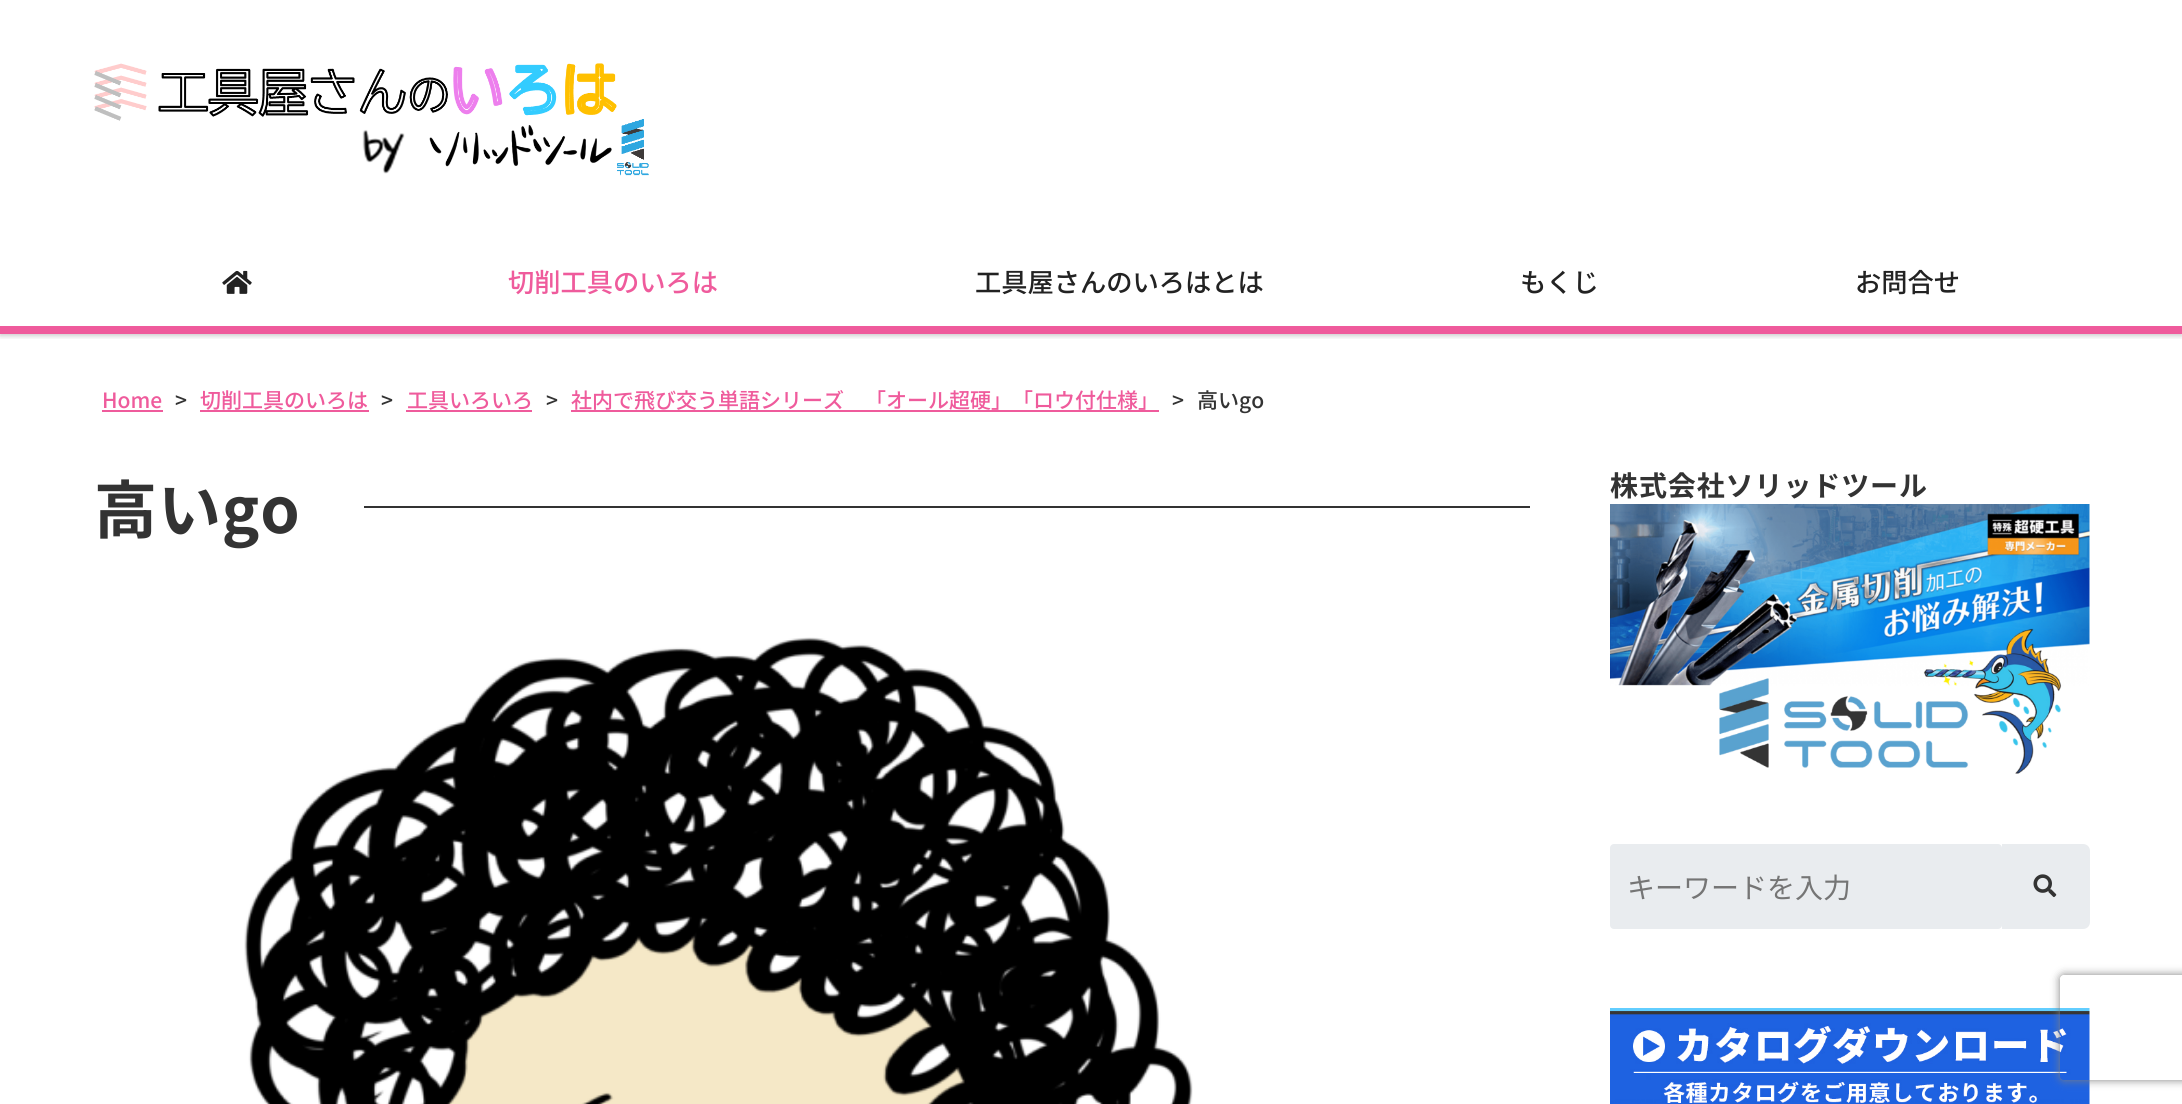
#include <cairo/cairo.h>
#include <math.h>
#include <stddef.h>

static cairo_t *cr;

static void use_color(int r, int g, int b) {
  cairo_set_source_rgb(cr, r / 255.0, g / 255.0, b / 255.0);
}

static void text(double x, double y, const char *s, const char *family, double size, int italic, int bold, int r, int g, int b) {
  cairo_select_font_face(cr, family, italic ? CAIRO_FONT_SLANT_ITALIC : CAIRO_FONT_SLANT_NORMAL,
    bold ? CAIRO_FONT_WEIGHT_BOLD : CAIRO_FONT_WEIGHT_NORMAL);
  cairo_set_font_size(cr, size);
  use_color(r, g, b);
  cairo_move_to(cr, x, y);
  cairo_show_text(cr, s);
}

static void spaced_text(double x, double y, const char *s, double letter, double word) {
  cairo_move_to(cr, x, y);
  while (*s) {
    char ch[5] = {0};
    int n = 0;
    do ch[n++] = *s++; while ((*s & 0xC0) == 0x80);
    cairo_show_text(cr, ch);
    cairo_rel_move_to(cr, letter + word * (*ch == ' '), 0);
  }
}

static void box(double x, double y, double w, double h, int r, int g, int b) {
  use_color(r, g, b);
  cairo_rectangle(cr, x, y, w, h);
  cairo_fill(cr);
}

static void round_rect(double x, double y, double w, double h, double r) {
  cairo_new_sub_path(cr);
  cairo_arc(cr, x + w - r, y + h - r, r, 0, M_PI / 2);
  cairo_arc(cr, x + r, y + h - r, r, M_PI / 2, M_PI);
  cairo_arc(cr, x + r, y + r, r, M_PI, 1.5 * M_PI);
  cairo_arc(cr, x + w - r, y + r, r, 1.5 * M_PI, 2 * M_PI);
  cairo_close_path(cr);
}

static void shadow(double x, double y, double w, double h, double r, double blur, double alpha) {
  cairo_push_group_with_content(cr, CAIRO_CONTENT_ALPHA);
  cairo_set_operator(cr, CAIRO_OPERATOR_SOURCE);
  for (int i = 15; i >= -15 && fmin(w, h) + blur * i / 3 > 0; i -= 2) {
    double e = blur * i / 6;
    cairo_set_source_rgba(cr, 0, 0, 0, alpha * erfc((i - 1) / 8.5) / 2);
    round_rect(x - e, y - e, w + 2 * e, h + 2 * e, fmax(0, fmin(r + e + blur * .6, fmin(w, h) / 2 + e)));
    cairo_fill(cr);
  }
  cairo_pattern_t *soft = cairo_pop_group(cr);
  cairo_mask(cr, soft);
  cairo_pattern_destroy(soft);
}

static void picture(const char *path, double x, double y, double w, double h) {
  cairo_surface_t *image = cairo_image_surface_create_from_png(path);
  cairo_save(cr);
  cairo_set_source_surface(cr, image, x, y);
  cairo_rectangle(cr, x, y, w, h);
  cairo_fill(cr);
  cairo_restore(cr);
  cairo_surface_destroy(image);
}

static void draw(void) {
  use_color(255, 255, 255);
  cairo_paint(cr);
  cairo_save(cr);
  cairo_rectangle(cr, 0, 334, 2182, 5);
  cairo_clip(cr);
  use_color(0, 0, 0);
  shadow(0, 2, 2182, 334, 0, 2.5, 0.2);
  cairo_restore(cr);
  picture("img_01.png", 94, 63, 555, 113);
  box(0, 326, 2182, 8, 239, 91, 156);
  picture("img_02.png", 222, 270, 30, 24);
  box(102, 410, 61, 2, 239, 91, 156);
  box(200, 410, 169, 2, 239, 91, 156);
  box(406, 410, 126, 2, 239, 91, 156);
  box(571, 410, 588, 2, 239, 91, 156);
  box(364, 506, 1166, 2, 51, 51, 51);
  picture("img_03.png", 244, 637, 949, 467);
  picture("img_04.png", 1610, 504, 480, 270);
  use_color(233, 236, 239);
  round_rect(1610, 844, 392, 85, 4);
  cairo_fill(cr);
  cairo_new_path(cr);
  cairo_move_to(cr, 2002, 844);
  cairo_line_to(cr, 2083, 844);
  cairo_curve_to(cr, 2087, 844, 2090, 847, 2090, 851);
  cairo_line_to(cr, 2090, 922);
  cairo_curve_to(cr, 2090, 926, 2087, 929, 2083, 929);
  cairo_line_to(cr, 2002, 929);
  cairo_close_path(cr);
  cairo_fill(cr);
  picture("img_05.png", 2033, 874, 24, 24);
  picture("img_06.png", 1610, 1008, 480, 96);
  cairo_save(cr);
  cairo_set_fill_rule(cr, CAIRO_FILL_RULE_EVEN_ODD);
  cairo_new_path(cr);
  cairo_move_to(cr, 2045, 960);
  cairo_line_to(cr, 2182, 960);
  cairo_line_to(cr, 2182, 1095);
  cairo_line_to(cr, 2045, 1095);
  cairo_close_path(cr);
  cairo_move_to(cr, 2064, 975);
  cairo_line_to(cr, 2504, 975);
  cairo_curve_to(cr, 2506, 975, 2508, 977, 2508, 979);
  cairo_line_to(cr, 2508, 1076);
  cairo_curve_to(cr, 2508, 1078, 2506, 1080, 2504, 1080);
  cairo_line_to(cr, 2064, 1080);
  cairo_curve_to(cr, 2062, 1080, 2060, 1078, 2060, 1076);
  cairo_line_to(cr, 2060, 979);
  cairo_curve_to(cr, 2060, 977, 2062, 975, 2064, 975);
  cairo_close_path(cr);
  cairo_clip(cr);
  use_color(128, 128, 128);
  shadow(2060, 975, 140, 105, 4, 4.5, 1);
  cairo_restore(cr);
  text(508, 292, "切削工具のいろは", "Noto Sans JP Medium", 26.25, 0, 0, 239, 91, 156);
  text(975, 292, "工具屋さんのいろはとは", "Noto Sans JP Medium", 26.25, 0, 0, 34, 34, 34);
  text(1520, 292, "もくじ", "Noto Sans JP Medium", 26.25, 0, 0, 34, 34, 34);
  text(1855, 292, "お問合せ", "Noto Sans JP Medium", 26.25, 0, 0, 34, 34, 34);
  text(102, 408, "Home", "Noto Sans JP Medium", 21, 0, 0, 239, 91, 156);
  text(175, 408, ">", "Noto Sans JP Medium", 21, 0, 0, 51, 51, 51);
  text(200, 408, "切削工具のいろは", "Noto Sans JP Medium", 21, 0, 0, 239, 91, 156);
  text(381, 408, ">", "Noto Sans JP Medium", 21, 0, 0, 51, 51, 51);
  text(407, 408, "工具いろいろ", "Noto Sans JP Medium", 21, 0, 0, 239, 91, 156);
  text(546, 408, ">", "Noto Sans JP Medium", 21, 0, 0, 51, 51, 51);
  text(571, 408, "社内で飛び交う単語シリーズ　「オール超硬」「ロウ付仕様」", "Noto Sans JP Medium", 21, 0, 0, 239, 91, 156);
  text(1172, 408, ">", "Noto Sans JP Medium", 21, 0, 0, 51, 51, 51);
  text(1197, 408, "高いgo", "Noto Sans JP Medium", 21, 0, 0, 51, 51, 51);
  cairo_select_font_face(cr, "Noto Sans JP", CAIRO_FONT_SLANT_NORMAL, CAIRO_FONT_WEIGHT_BOLD);
  cairo_set_font_size(cr, 63);
  spaced_text(94, 533, "高いgo", 0.9, 0);
  cairo_set_font_size(cr, 28);
  spaced_text(1610, 496, "株式会社ソリッドツール", 0.9, 0);
  text(1627, 898, "キーワードを入力", "Noto Sans JP", 28, 0, 0, 117, 117, 117);
}

int main(void) {
  cairo_surface_t *surface = cairo_image_surface_create(CAIRO_FORMAT_RGB24, 2182, 1104);
  cr = cairo_create(surface);
  cairo_font_options_t *options = cairo_font_options_create();
  cairo_font_options_set_hint_metrics(options, CAIRO_HINT_METRICS_OFF);
  cairo_font_options_set_hint_style(options, CAIRO_HINT_STYLE_NONE);
  cairo_set_font_options(cr, options);
  cairo_set_miter_limit(cr, 4);
  draw();
  cairo_surface_write_to_png(surface, "out.png");
  cairo_font_options_destroy(options);
  cairo_destroy(cr);
  cairo_surface_destroy(surface);
  return 0;
}
